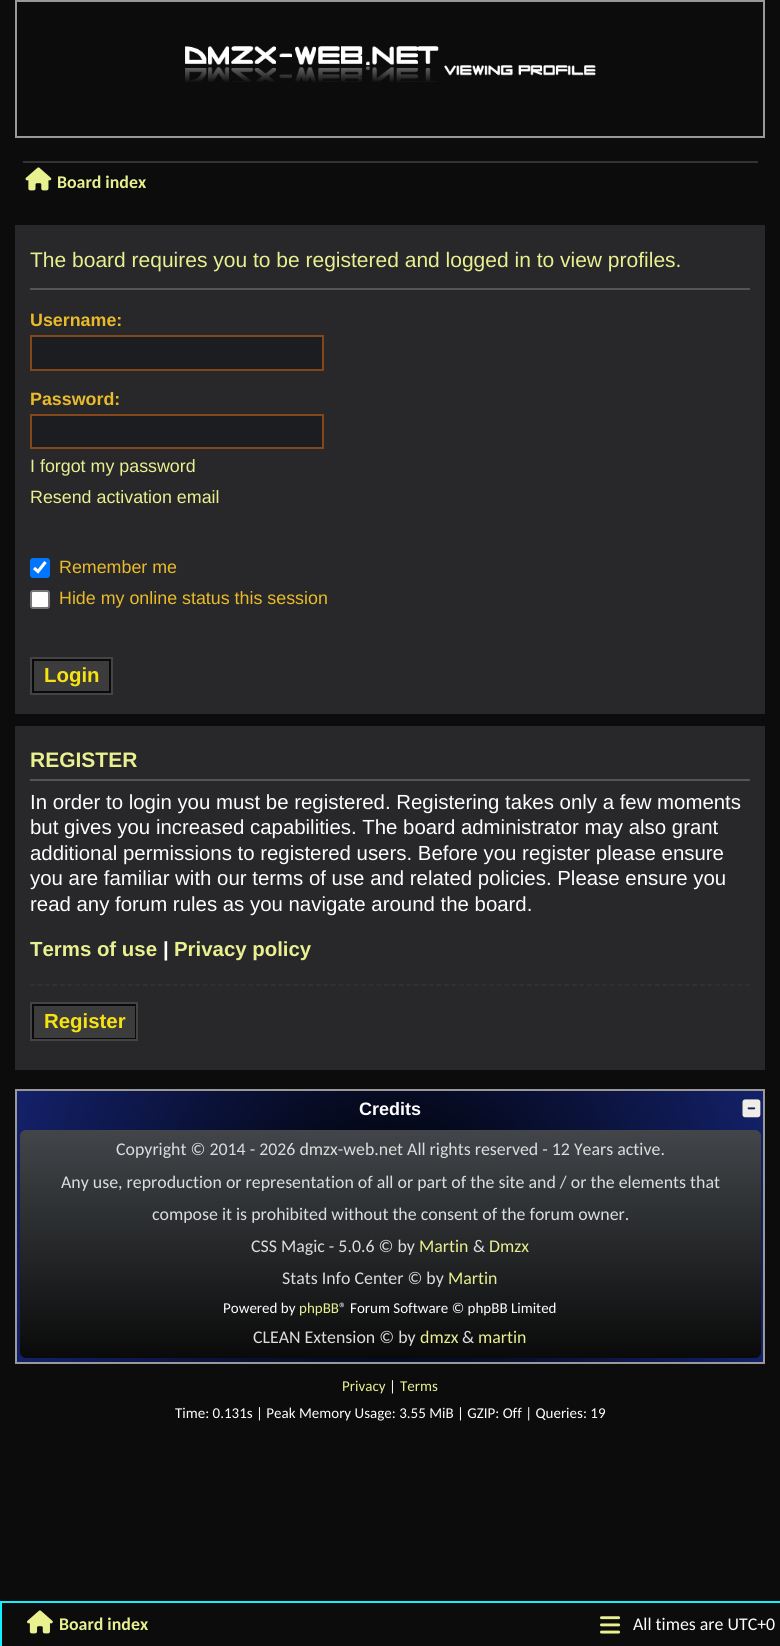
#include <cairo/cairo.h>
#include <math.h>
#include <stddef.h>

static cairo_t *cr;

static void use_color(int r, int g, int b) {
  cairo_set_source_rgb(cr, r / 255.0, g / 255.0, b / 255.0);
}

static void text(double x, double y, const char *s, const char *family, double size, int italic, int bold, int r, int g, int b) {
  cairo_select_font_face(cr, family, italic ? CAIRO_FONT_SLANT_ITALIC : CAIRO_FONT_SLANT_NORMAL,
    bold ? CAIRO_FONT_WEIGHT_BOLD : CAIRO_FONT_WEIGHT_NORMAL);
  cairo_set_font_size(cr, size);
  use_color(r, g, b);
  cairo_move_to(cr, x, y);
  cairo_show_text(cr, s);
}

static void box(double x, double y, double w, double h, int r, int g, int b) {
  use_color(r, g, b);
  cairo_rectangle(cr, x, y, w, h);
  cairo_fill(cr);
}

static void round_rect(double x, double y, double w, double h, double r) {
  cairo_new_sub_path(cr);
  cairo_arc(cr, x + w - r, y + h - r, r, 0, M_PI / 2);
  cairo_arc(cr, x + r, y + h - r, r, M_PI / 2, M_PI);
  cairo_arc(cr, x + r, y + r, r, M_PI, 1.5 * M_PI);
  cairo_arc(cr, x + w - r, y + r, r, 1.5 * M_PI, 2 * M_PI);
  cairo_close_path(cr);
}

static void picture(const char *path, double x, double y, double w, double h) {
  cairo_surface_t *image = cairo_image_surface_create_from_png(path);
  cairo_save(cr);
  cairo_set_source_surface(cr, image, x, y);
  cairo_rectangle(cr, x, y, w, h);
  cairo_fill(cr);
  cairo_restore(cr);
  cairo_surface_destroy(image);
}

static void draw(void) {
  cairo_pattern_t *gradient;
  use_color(12, 12, 13);
  cairo_paint(cr);
  cairo_rectangle(cr, 16, 1, 748, 136);
  use_color(153, 153, 153);
  cairo_stroke(cr);
  picture("img_01.png", 185, 46, 411, 36);
  box(23, 161, 735, 2, 51, 51, 51);
  picture("img_02.png", 25, 167, 27, 24);
  box(15, 225, 750, 489, 40, 40, 43);
  box(30, 288, 720, 2, 85, 85, 85);
  use_color(27, 29, 32);
  cairo_rectangle(cr, 31, 336, 292, 34);
  cairo_fill_preserve(cr);
  use_color(132, 71, 25);
  cairo_stroke(cr);
  use_color(27, 29, 32);
  cairo_rectangle(cr, 31, 415, 292, 33);
  cairo_fill_preserve(cr);
  use_color(132, 71, 25);
  cairo_stroke(cr);
  use_color(0, 117, 255);
  round_rect(30, 558, 20, 20, 3);
  cairo_fill(cr);
  cairo_new_path(cr);
  cairo_move_to(cr, 34, 568);
  cairo_line_to(cr, 38, 571.5);
  cairo_line_to(cr, 45.5, 562);
  use_color(255, 255, 255);
  cairo_set_line_width(cr, 3.1);
  cairo_stroke(cr);
  round_rect(31, 591, 18, 17, 2);
  cairo_fill_preserve(cr);
  use_color(118, 118, 118);
  cairo_set_line_width(cr, 2);
  cairo_stroke(cr);
  use_color(60, 60, 61);
  cairo_rectangle(cr, 33, 660, 77, 32);
  cairo_fill_preserve(cr);
  use_color(10, 10, 10);
  cairo_stroke(cr);
  cairo_rectangle(cr, 31, 658, 81, 36);
  use_color(68, 68, 68);
  cairo_stroke(cr);
  box(15, 726, 750, 344, 40, 40, 43);
  box(30, 779, 720, 2, 85, 85, 85);
  cairo_new_path(cr);
  cairo_move_to(cr, 30, 985);
  cairo_line_to(cr, 750, 985);
  use_color(51, 51, 51);
  cairo_set_line_width(cr, 1.5);
  cairo_set_dash(cr, (double[]){4.5, 3.03}, 2, 0);
  cairo_stroke(cr);
  use_color(60, 60, 61);
  cairo_rectangle(cr, 33, 1005, 103, 34);
  cairo_fill_preserve(cr);
  use_color(10, 10, 10);
  cairo_set_line_width(cr, 2);
  cairo_set_dash(cr, NULL, 0, 0);
  cairo_stroke(cr);
  cairo_rectangle(cr, 31, 1003, 106, 37);
  use_color(68, 68, 68);
  cairo_stroke(cr);
  gradient = cairo_pattern_create_radial(390, 1226, 0, 390, 1226, 397);
  cairo_pattern_add_color_stop_rgba(gradient, 0, 0, 0, 0, 1);
  cairo_pattern_add_color_stop_rgba(gradient, 1, 0.075, 0.129, 0.412, 1);
  cairo_set_source(cr, gradient);
  cairo_pattern_destroy(gradient);
  cairo_rectangle(cr, 17, 1091, 746, 271);
  cairo_fill(cr);
  cairo_rectangle(cr, 16, 1090, 748, 273);
  use_color(153, 153, 153);
  cairo_stroke(cr);
  picture("img_03.png", 742, 1099, 19, 19);
  gradient = cairo_pattern_create_linear(390, 1130, 390, 1358);
  cairo_pattern_add_color_stop_rgba(gradient, 0, 0.259, 0.275, 0.29, 1);
  cairo_pattern_add_color_stop_rgba(gradient, 1, 0.039, 0.039, 0.039, 1);
  cairo_set_source(cr, gradient);
  cairo_pattern_destroy(gradient);
  round_rect(20, 1130, 741, 228, 6);
  cairo_fill(cr);
  cairo_rectangle(cr, 1, 1602, 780, 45);
  use_color(20, 239, 255);
  cairo_stroke(cr);
  picture("img_04.png", 27, 1610, 26, 24);
  picture("img_05.png", 600, 1616, 21, 18);
  text(57, 188, "Board index", "Carlito", 17.85, 0, 1, 233, 240, 144);
  text(30, 267, "The board requires you to be registered and logged in to view profiles.", "Liberation Sans", 21, 0, 0, 233, 240, 144);
  text(30, 326, "Username:", "Liberation Sans", 17.85, 0, 1, 234, 187, 41);
  text(30, 405, "Password:", "Liberation Sans", 17.85, 0, 1, 234, 187, 41);
  text(30, 472, "I forgot my password", "Liberation Sans", 17.85, 0, 0, 233, 240, 144);
  text(30, 503, "Resend activation email", "Liberation Sans", 17.85, 0, 0, 233, 240, 144);
  text(59, 573, "Remember me", "Liberation Sans", 17.85, 0, 0, 234, 187, 41);
  text(59, 604, "Hide my online status this session", "Liberation Sans", 17.85, 0, 0, 234, 187, 41);
  text(44, 682, "Login", "Liberation Sans", 20.4, 0, 1, 247, 227, 17);
  text(30, 767, "REGISTER", "Liberation Sans", 21, 0, 1, 233, 240, 144);
  text(30, 809, "In order to login you must be registered. Registering takes only a few moments", "Liberation Sans", 20.4, 0, 0, 255, 255, 255);
  text(30, 834, "but gives you increased capabilities. The board administrator may also grant", "Liberation Sans", 20.4, 0, 0, 255, 255, 255);
  text(30, 860, "additional permissions to registered users. Before you register please ensure", "Liberation Sans", 20.4, 0, 0, 255, 255, 255);
  text(30, 885, "you are familiar with our terms of use and related policies. Please ensure you", "Liberation Sans", 20.4, 0, 0, 255, 255, 255);
  text(30, 911, "read any forum rules as you navigate around the board.", "Liberation Sans", 20.4, 0, 0, 255, 255, 255);
  text(30, 956, "Terms of use", "Liberation Sans", 20.4, 0, 1, 233, 240, 144);
  text(163, 956, "|", "Liberation Sans", 20.4, 0, 1, 255, 255, 255);
  text(174, 956, "Privacy policy", "Liberation Sans", 20.4, 0, 1, 233, 240, 144);
  text(44, 1028, "Register", "Liberation Sans", 20.4, 0, 1, 247, 227, 17);
  text(359, 1115, "Credits", "Liberation Sans", 18, 0, 1, 255, 255, 255);
  text(116, 1155, "Copyright © 2014 - 2026 dmzx-web.net All rights reserved - 12 Years active.", "Carlito", 17.85, 0, 0, 221, 221, 221);
  text(61, 1188, "Any use, reproduction or representation of all or part of the site and / or the elements that", "Carlito", 17.85, 0, 0, 221, 221, 221);
  text(152, 1220, "compose it is prohibited without the consent of the forum owner.", "Carlito", 17.85, 0, 0, 221, 221, 221);
  text(251, 1252, "CSS Magic - 5.0.6 © by", "Carlito", 17.85, 0, 0, 221, 221, 221);
  text(419, 1252, "Martin", "Carlito", 17.85, 0, 0, 233, 240, 144);
  text(473, 1252, "&", "Carlito", 17.85, 0, 0, 221, 221, 221);
  text(489, 1252, "Dmzx", "Carlito", 17.85, 0, 0, 233, 240, 144);
  text(282, 1284, "Stats Info Center © by", "Carlito", 17.85, 0, 0, 221, 221, 221);
  text(448, 1284, "Martin", "Carlito", 17.85, 0, 0, 233, 240, 144);
  text(223, 1313, "Powered by", "Carlito", 15, 0, 0, 255, 255, 255);
  text(299, 1313, "phpBB", "Carlito", 15, 0, 0, 233, 240, 144);
  text(339, 1313, "® Forum Software © phpBB Limited", "Carlito", 15, 0, 0, 255, 255, 255);
  text(253, 1343, "CLEAN Extension © by", "Carlito", 17.85, 0, 0, 221, 221, 221);
  text(420, 1343, "dmzx", "Carlito", 17.85, 0, 0, 233, 240, 144);
  text(462, 1343, "&", "Carlito", 17.85, 0, 0, 221, 221, 221);
  text(478, 1343, "martin", "Carlito", 17.85, 0, 0, 233, 240, 144);
  text(342, 1391, "Privacy", "Carlito", 15, 0, 0, 233, 240, 144);
  text(389, 1391, "|", "Carlito", 15, 0, 0, 255, 255, 255);
  text(400, 1391, "Terms", "Carlito", 15, 0, 0, 233, 240, 144);
  text(175, 1418, "Time: 0.131s | Peak Memory Usage: 3.55 MiB | GZIP: Off | Queries: 19", "Carlito", 15, 0, 0, 255, 255, 255);
  text(59, 1630, "Board index", "Carlito", 17.85, 0, 1, 233, 240, 144);
  text(633, 1630, "All times are UTC+0", "Carlito", 17.85, 0, 0, 255, 255, 255);
}

int main(void) {
  cairo_surface_t *surface = cairo_image_surface_create(CAIRO_FORMAT_RGB24, 780, 1646);
  cr = cairo_create(surface);
  cairo_font_options_t *options = cairo_font_options_create();
  cairo_font_options_set_hint_metrics(options, CAIRO_HINT_METRICS_OFF);
  cairo_font_options_set_hint_style(options, CAIRO_HINT_STYLE_NONE);
  cairo_set_font_options(cr, options);
  cairo_set_miter_limit(cr, 4);
  draw();
  cairo_surface_write_to_png(surface, "out.png");
  cairo_font_options_destroy(options);
  cairo_destroy(cr);
  cairo_surface_destroy(surface);
  return 0;
}
